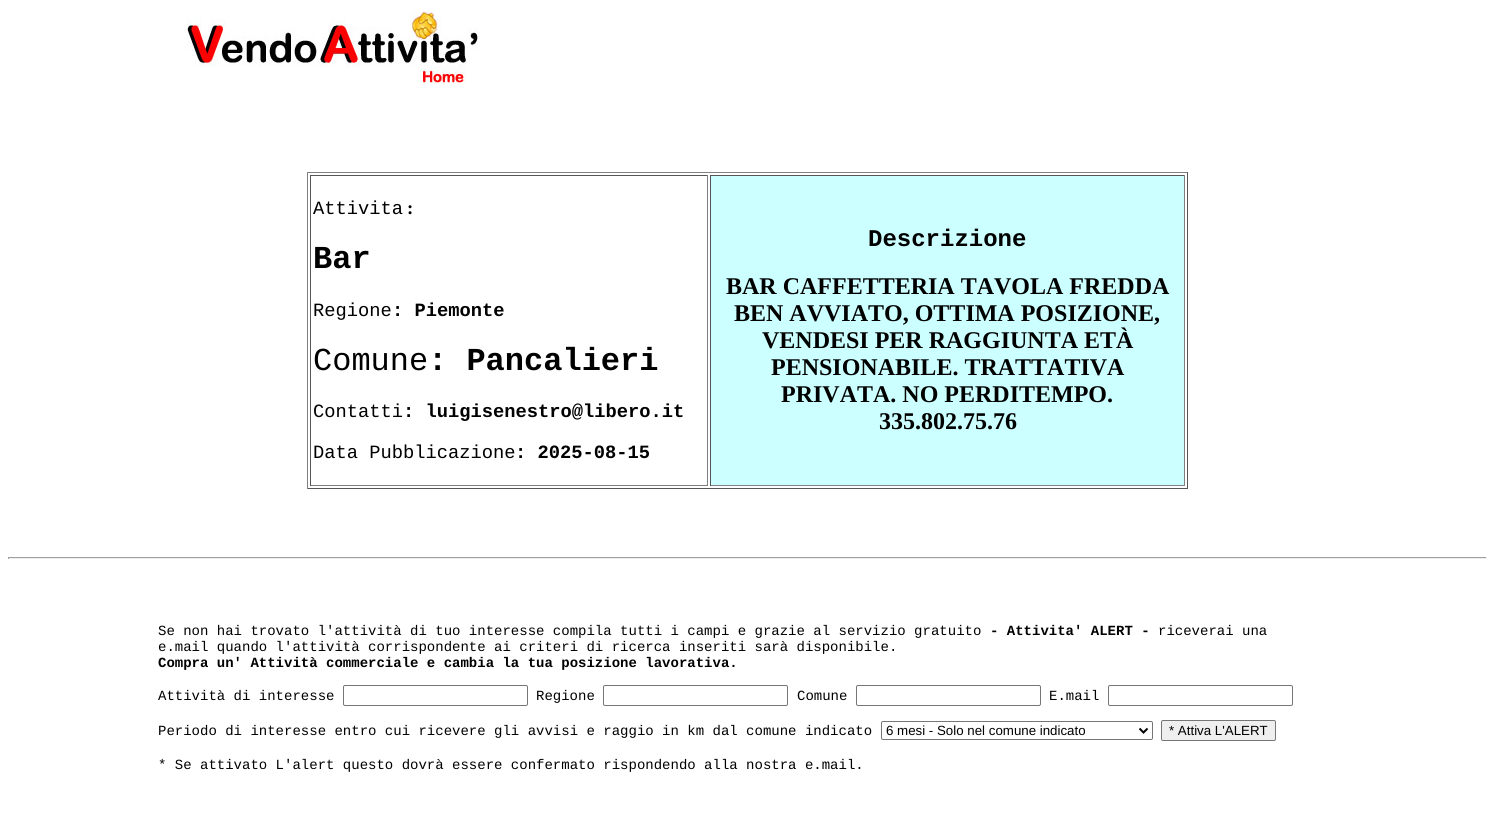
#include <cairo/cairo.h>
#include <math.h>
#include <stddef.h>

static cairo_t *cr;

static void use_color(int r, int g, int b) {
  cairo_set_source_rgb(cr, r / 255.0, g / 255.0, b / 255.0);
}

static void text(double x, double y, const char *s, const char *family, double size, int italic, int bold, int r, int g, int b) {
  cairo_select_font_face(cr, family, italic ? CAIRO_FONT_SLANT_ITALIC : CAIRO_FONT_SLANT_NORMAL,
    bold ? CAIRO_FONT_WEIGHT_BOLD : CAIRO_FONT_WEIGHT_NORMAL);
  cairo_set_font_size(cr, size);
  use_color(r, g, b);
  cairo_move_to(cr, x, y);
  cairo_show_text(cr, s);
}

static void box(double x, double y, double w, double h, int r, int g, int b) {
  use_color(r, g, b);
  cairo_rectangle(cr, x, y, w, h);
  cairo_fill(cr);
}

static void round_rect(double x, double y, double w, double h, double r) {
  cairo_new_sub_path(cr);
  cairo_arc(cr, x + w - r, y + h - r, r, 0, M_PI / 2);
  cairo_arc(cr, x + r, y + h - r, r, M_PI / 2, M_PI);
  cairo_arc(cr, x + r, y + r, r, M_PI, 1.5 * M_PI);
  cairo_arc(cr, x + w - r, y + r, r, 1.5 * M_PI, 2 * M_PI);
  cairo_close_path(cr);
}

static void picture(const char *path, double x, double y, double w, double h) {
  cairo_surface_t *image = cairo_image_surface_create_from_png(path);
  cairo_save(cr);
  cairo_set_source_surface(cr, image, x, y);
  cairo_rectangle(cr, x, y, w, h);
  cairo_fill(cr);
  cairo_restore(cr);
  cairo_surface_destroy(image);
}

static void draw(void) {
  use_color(255, 255, 255);
  cairo_paint(cr);
  picture("img_01.png", 186, 11, 292, 72);
  box(307, 172, 881, 1, 128, 128, 128);
  box(1187, 172, 1, 317, 85, 85, 85);
  box(307, 488, 881, 1, 85, 85, 85);
  box(307, 172, 1, 317, 128, 128, 128);
  box(310, 175, 398, 1, 85, 85, 85);
  box(707, 175, 1, 311, 128, 128, 128);
  box(310, 485, 398, 1, 128, 128, 128);
  box(310, 175, 1, 311, 85, 85, 85);
  box(711, 176, 473, 309, 204, 255, 255);
  box(710, 175, 475, 1, 85, 85, 85);
  box(1184, 175, 1, 311, 128, 128, 128);
  box(710, 485, 475, 1, 128, 128, 128);
  box(710, 175, 1, 311, 85, 85, 85);
  box(8, 557, 1479, 1, 159, 159, 159);
  box(1486, 557, 1, 2, 238, 238, 238);
  box(8, 558, 1479, 1, 238, 238, 238);
  box(8, 557, 1, 2, 159, 159, 159);
  round_rect(343.5, 685.5, 184, 20, 1.5);
  use_color(118, 118, 118);
  cairo_set_line_width(cr, 1);
  cairo_stroke(cr);
  round_rect(603.5, 685.5, 184, 20, 1.5);
  cairo_stroke(cr);
  round_rect(856.5, 685.5, 184, 20, 1.5);
  cairo_stroke(cr);
  round_rect(1108.5, 685.5, 184, 20, 1.5);
  cairo_stroke(cr);
  round_rect(881.5, 721.5, 271, 18, 1.5);
  cairo_stroke(cr);
  cairo_new_path(cr);
  cairo_move_to(cr, 1139.5, 728.5);
  cairo_line_to(cr, 1143.5, 732.5);
  cairo_line_to(cr, 1147.5, 728.5);
  use_color(0, 0, 0);
  cairo_set_line_width(cr, 2);
  cairo_stroke(cr);
  use_color(239, 239, 239);
  round_rect(1161.5, 720.5, 114, 20, 1.5);
  cairo_fill_preserve(cr);
  use_color(118, 118, 118);
  cairo_set_line_width(cr, 1);
  cairo_stroke(cr);
  text(313, 214, "Attivita", "Liberation Mono", 18.75, 0, 0, 0, 0, 0);
  text(407, 214, ":", "Liberation Serif", 18.75, 0, 1, 0, 0, 0);
  text(313, 268, "Bar", "Liberation Mono", 32, 0, 1, 0, 0, 0);
  text(313, 316, "Regione", "Liberation Mono", 18.75, 0, 0, 0, 0, 0);
  text(392, 316, ": Piemonte", "Liberation Mono", 18.75, 0, 1, 0, 0, 0);
  text(313, 370, "Comune", "Liberation Mono", 32, 0, 0, 0, 0, 0);
  text(428, 370, ": Pancalieri", "Liberation Mono", 32, 0, 1, 0, 0, 0);
  text(313, 417, "Contatti", "Liberation Mono", 18.75, 0, 0, 0, 0, 0);
  text(403, 417, ": luigisenestro@libero.it", "Liberation Mono", 18.75, 0, 1, 0, 0, 0);
  text(313, 458, "Data Pubblicazione", "Liberation Mono", 18.75, 0, 0, 0, 0, 0);
  text(515, 458, ": 2025-08-15", "Liberation Mono", 18.75, 0, 1, 0, 0, 0);
  text(868, 246, "Descrizione", "Liberation Mono", 24, 0, 1, 0, 0, 0);
  text(726, 294, "BAR CAFFETTERIA TAVOLA FREDDA", "Liberation Serif", 24, 0, 1, 0, 0, 0);
  text(734, 321, "BEN AVVIATO, OTTIMA POSIZIONE,", "Liberation Serif", 24, 0, 1, 0, 0, 0);
  text(762, 348, "VENDESI PER RAGGIUNTA ETÀ", "Liberation Serif", 24, 0, 1, 0, 0, 0);
  text(771, 375, "PENSIONABILE. TRATTATIVA", "Liberation Serif", 24, 0, 1, 0, 0, 0);
  text(781, 402, "PRIVATA. NO PERDITEMPO.", "Liberation Serif", 24, 0, 1, 0, 0, 0);
  text(879, 429, "335.802.75.76", "Liberation Serif", 24, 0, 1, 0, 0, 0);
  text(158, 635, "Se non hai trovato l'attività di tuo interesse compila tutti i campi e grazie al servizio gratuito", "Liberation Mono", 14, 0, 0, 0, 0, 0);
  text(990, 635, "- Attivita' ALERT -", "Liberation Mono", 14, 0, 1, 0, 0, 0);
  text(1158, 635, "riceverai una", "Liberation Mono", 14, 0, 0, 0, 0, 0);
  text(158, 651, "e.mail quando l'attività corrispondente ai criteri di ricerca inseriti sarà disponibile.", "Liberation Mono", 14, 0, 0, 0, 0, 0);
  text(158, 667, "Compra un' Attività commerciale e cambia la tua posizione lavorativa.", "Liberation Mono", 14, 0, 1, 0, 0, 0);
  text(158, 700, "Attività di interesse", "Liberation Mono", 14, 0, 0, 0, 0, 0);
  text(536, 700, "Regione", "Liberation Mono", 14, 0, 0, 0, 0, 0);
  text(797, 700, "Comune", "Liberation Mono", 14, 0, 0, 0, 0, 0);
  text(1049, 700, "E.mail", "Liberation Mono", 14, 0, 0, 0, 0, 0);
  text(158, 735, "Periodo di interesse entro cui ricevere gli avvisi e raggio in km dal comune indicato", "Liberation Mono", 14, 0, 0, 0, 0, 0);
  text(886, 735, "6 mesi - Solo nel comune indicato", "Liberation Sans", 13.3, 0, 0, 0, 0, 0);
  text(1169, 735, "* Attiva L'ALERT", "Liberation Sans", 13.3, 0, 0, 0, 0, 0);
  text(158, 769, "* Se attivato L'alert questo dovrà essere confermato rispondendo alla nostra e.mail.", "Liberation Mono", 14, 0, 0, 0, 0, 0);
}

int main(void) {
  cairo_surface_t *surface = cairo_image_surface_create(CAIRO_FORMAT_RGB24, 1495, 825);
  cr = cairo_create(surface);
  cairo_font_options_t *options = cairo_font_options_create();
  cairo_font_options_set_hint_metrics(options, CAIRO_HINT_METRICS_OFF);
  cairo_font_options_set_hint_style(options, CAIRO_HINT_STYLE_NONE);
  cairo_set_font_options(cr, options);
  cairo_set_miter_limit(cr, 4);
  draw();
  cairo_surface_write_to_png(surface, "out.png");
  cairo_font_options_destroy(options);
  cairo_destroy(cr);
  cairo_surface_destroy(surface);
  return 0;
}
